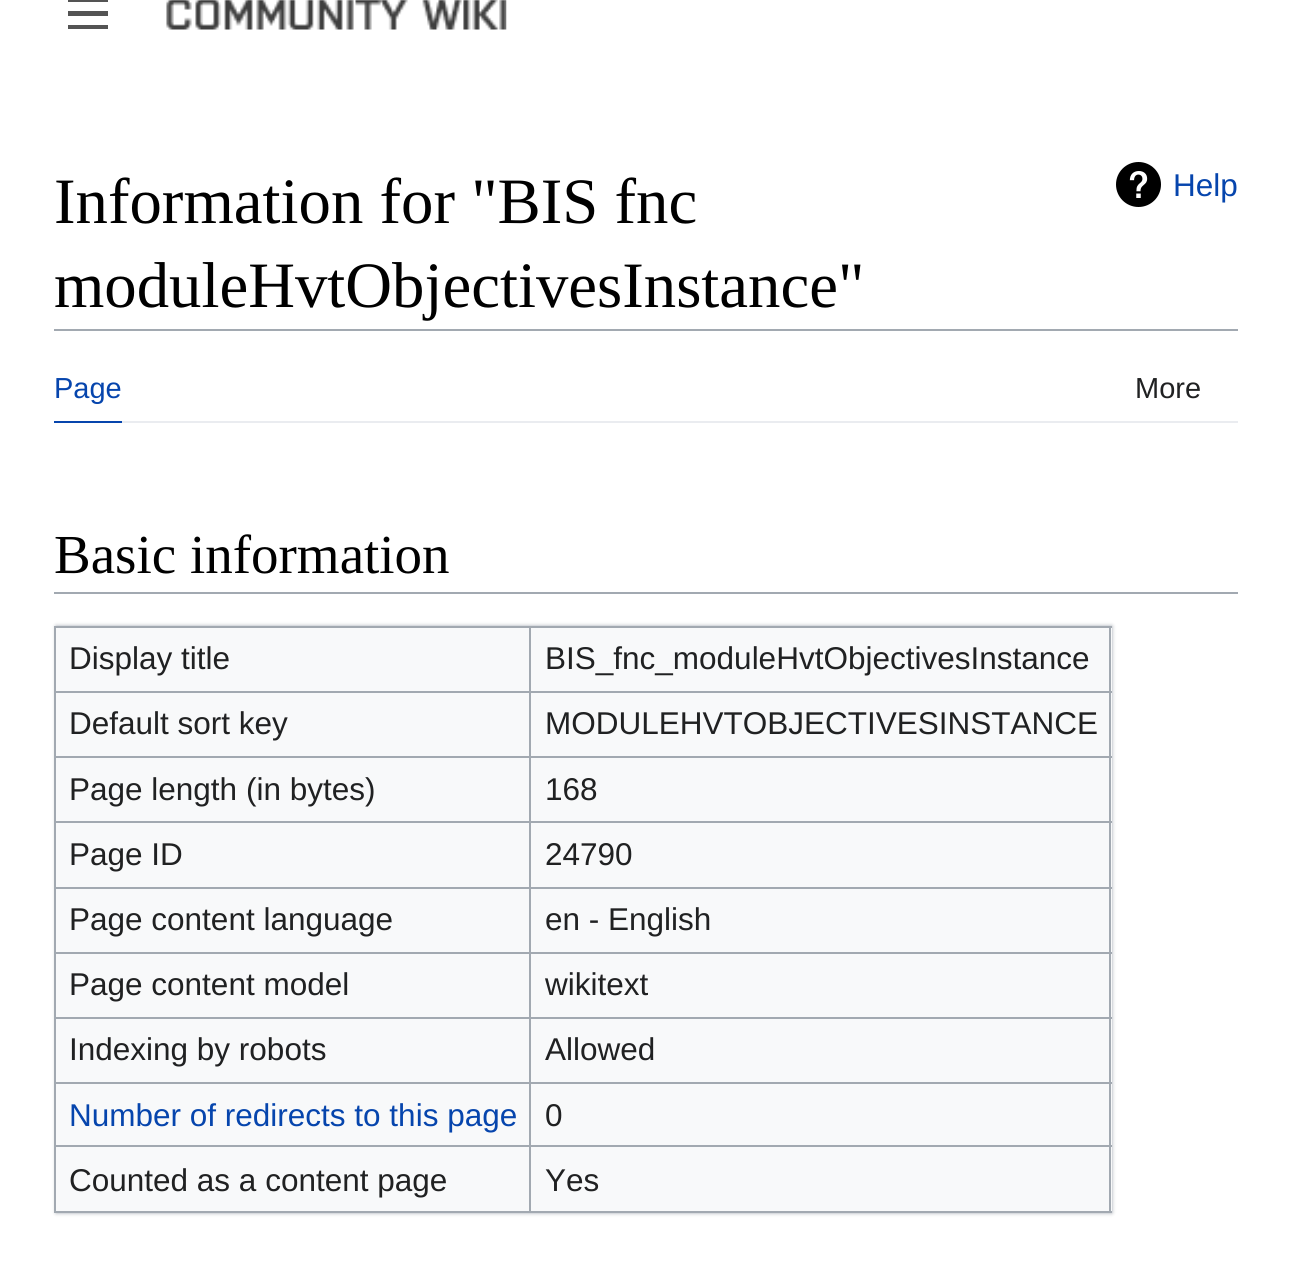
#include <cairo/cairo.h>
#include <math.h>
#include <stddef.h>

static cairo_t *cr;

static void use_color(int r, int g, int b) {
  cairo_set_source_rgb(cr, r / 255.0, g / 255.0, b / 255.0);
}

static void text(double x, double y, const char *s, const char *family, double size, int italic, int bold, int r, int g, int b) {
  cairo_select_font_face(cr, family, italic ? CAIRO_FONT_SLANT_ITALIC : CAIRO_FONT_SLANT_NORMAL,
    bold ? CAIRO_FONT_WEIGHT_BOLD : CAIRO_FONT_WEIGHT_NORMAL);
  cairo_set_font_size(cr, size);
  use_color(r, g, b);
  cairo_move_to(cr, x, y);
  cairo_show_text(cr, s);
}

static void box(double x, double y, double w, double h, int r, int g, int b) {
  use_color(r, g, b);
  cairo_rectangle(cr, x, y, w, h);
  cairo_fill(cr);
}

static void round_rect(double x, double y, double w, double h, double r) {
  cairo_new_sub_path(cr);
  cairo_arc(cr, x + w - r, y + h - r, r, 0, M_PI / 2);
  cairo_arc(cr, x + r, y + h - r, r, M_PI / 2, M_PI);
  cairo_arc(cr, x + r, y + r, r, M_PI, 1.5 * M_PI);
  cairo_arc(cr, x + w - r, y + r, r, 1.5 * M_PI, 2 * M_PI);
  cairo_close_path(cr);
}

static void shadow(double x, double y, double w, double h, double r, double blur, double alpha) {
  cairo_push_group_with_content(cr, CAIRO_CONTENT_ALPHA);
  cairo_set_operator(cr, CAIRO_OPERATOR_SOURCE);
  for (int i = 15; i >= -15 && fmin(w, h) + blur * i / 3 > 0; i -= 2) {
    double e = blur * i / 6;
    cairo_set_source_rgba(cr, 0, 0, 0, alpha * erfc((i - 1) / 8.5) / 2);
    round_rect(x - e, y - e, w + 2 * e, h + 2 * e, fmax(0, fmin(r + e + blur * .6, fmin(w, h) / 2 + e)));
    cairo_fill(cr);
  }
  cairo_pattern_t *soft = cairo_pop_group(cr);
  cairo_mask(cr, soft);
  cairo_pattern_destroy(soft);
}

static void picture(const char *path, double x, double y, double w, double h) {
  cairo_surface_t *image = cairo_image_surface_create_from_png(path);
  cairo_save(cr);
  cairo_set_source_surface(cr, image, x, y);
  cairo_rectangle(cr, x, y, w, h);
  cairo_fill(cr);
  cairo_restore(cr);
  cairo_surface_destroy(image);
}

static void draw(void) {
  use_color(255, 255, 255);
  cairo_paint(cr);
  use_color(84, 84, 84);
  cairo_new_path(cr);
  cairo_move_to(cr, 68, -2);
  cairo_line_to(cr, 68, 2);
  cairo_line_to(cr, 108, 2);
  cairo_line_to(cr, 108, -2);
  cairo_close_path(cr);
  cairo_move_to(cr, 68, 16);
  cairo_line_to(cr, 108, 16);
  cairo_line_to(cr, 108, 11);
  cairo_line_to(cr, 68, 11);
  cairo_close_path(cr);
  cairo_move_to(cr, 68, 29);
  cairo_line_to(cr, 108, 29);
  cairo_line_to(cr, 108, 25);
  cairo_line_to(cr, 68, 25);
  cairo_close_path(cr);
  cairo_fill(cr);
  picture("img_01.png", 166, 0, 341, 30);
  box(54, 329, 1184, 2, 162, 169, 177);
  picture("img_02.png", 1116, 162, 45, 45);
  box(122, 421, 1116, 2, 234, 236, 240);
  box(54, 421, 68, 2, 6, 69, 173);
  box(54, 592, 1184, 2, 162, 169, 177);
  box(56, 628, 1056, 583, 248, 249, 250);
  cairo_save(cr);
  cairo_set_fill_rule(cr, CAIRO_FILL_RULE_EVEN_ODD);
  cairo_new_path(cr);
  cairo_move_to(cr, 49, 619);
  cairo_line_to(cr, 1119, 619);
  cairo_line_to(cr, 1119, 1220);
  cairo_line_to(cr, 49, 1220);
  cairo_close_path(cr);
  cairo_move_to(cr, 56, 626);
  cairo_line_to(cr, 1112, 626);
  cairo_line_to(cr, 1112, 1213);
  cairo_line_to(cr, 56, 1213);
  cairo_close_path(cr);
  cairo_clip(cr);
  use_color(162, 169, 177);
  shadow(56, 626, 1056, 587, 0, 2, 1);
  cairo_restore(cr);
  box(54, 626, 1058, 2, 162, 169, 177);
  box(1109, 626, 2, 587, 162, 169, 177);
  box(54, 1211, 1058, 2, 162, 169, 177);
  box(54, 626, 2, 587, 162, 169, 177);
  box(529, 691, 583, 2, 162, 169, 177);
  box(529, 756, 583, 2, 162, 169, 177);
  box(529, 821, 583, 2, 162, 169, 177);
  box(529, 887, 583, 2, 162, 169, 177);
  box(529, 952, 583, 2, 162, 169, 177);
  box(529, 1017, 583, 2, 162, 169, 177);
  box(529, 1082, 583, 2, 162, 169, 177);
  box(529, 1145, 583, 2, 162, 169, 177);
  box(529, 1145, 2, 68, 162, 169, 177);
  box(54, 1145, 477, 2, 162, 169, 177);
  box(529, 1082, 2, 66, 162, 169, 177);
  box(54, 1082, 477, 2, 162, 169, 177);
  box(529, 1017, 2, 68, 162, 169, 177);
  box(54, 1017, 477, 2, 162, 169, 177);
  box(529, 952, 2, 67, 162, 169, 177);
  box(54, 952, 477, 2, 162, 169, 177);
  box(529, 887, 2, 67, 162, 169, 177);
  box(54, 887, 477, 2, 162, 169, 177);
  box(529, 821, 2, 68, 162, 169, 177);
  box(54, 821, 477, 2, 162, 169, 177);
  box(529, 756, 2, 68, 162, 169, 177);
  box(54, 756, 477, 2, 162, 169, 177);
  box(529, 691, 2, 67, 162, 169, 177);
  box(54, 691, 477, 2, 162, 169, 177);
  box(529, 626, 2, 67, 162, 169, 177);
  text(54, 223, "Information for \"BIS fnc", "Liberation Serif", 64.75, 0, 0, 0, 0, 0);
  text(54, 307, "moduleHvtObjectivesInstance\"", "Liberation Serif", 64.75, 0, 0, 0, 0, 0);
  text(1173, 196, "Help", "Liberation Sans", 31.5, 0, 0, 6, 69, 173);
  text(54, 398, "Page", "Liberation Sans", 29, 0, 0, 6, 69, 173);
  text(1135, 398, "More", "Liberation Sans", 29, 0, 0, 32, 33, 34);
  text(54, 573, "Basic information", "Liberation Serif", 55, 0, 0, 0, 0, 0);
  text(69, 669, "Display title", "Liberation Sans", 31.5, 0, 0, 32, 33, 34);
  text(545, 669, "BIS_fnc_moduleHvtObjectivesInstance", "Liberation Sans", 31.5, 0, 0, 32, 33, 34);
  text(69, 734, "Default sort key", "Liberation Sans", 31.5, 0, 0, 32, 33, 34);
  text(545, 734, "MODULEHVTOBJECTIVESINSTANCE", "Liberation Sans", 31.5, 0, 0, 32, 33, 34);
  text(69, 800, "Page length (in bytes)", "Liberation Sans", 31.5, 0, 0, 32, 33, 34);
  text(545, 800, "168", "Liberation Sans", 31.5, 0, 0, 32, 33, 34);
  text(69, 865, "Page ID", "Liberation Sans", 31.5, 0, 0, 32, 33, 34);
  text(545, 865, "24790", "Liberation Sans", 31.5, 0, 0, 32, 33, 34);
  text(69, 930, "Page content language", "Liberation Sans", 31.5, 0, 0, 32, 33, 34);
  text(545, 930, "en - English", "Liberation Sans", 31.5, 0, 0, 32, 33, 34);
  text(69, 995, "Page content model", "Liberation Sans", 31.5, 0, 0, 32, 33, 34);
  text(545, 995, "wikitext", "Liberation Sans", 31.5, 0, 0, 32, 33, 34);
  text(69, 1060, "Indexing by robots", "Liberation Sans", 31.5, 0, 0, 32, 33, 34);
  text(545, 1060, "Allowed", "Liberation Sans", 31.5, 0, 0, 32, 33, 34);
  text(69, 1126, "Number of redirects to this page", "Liberation Sans", 31.5, 0, 0, 6, 69, 173);
  text(545, 1126, "0", "Liberation Sans", 31.5, 0, 0, 32, 33, 34);
  text(69, 1191, "Counted as a content page", "Liberation Sans", 31.5, 0, 0, 32, 33, 34);
  text(545, 1191, "Yes", "Liberation Sans", 31.5, 0, 0, 32, 33, 34);
}

int main(void) {
  cairo_surface_t *surface = cairo_image_surface_create(CAIRO_FORMAT_RGB24, 1290, 1277);
  cr = cairo_create(surface);
  cairo_font_options_t *options = cairo_font_options_create();
  cairo_font_options_set_hint_metrics(options, CAIRO_HINT_METRICS_OFF);
  cairo_font_options_set_hint_style(options, CAIRO_HINT_STYLE_NONE);
  cairo_set_font_options(cr, options);
  cairo_set_miter_limit(cr, 4);
  draw();
  cairo_surface_write_to_png(surface, "out.png");
  cairo_font_options_destroy(options);
  cairo_destroy(cr);
  cairo_surface_destroy(surface);
  return 0;
}
